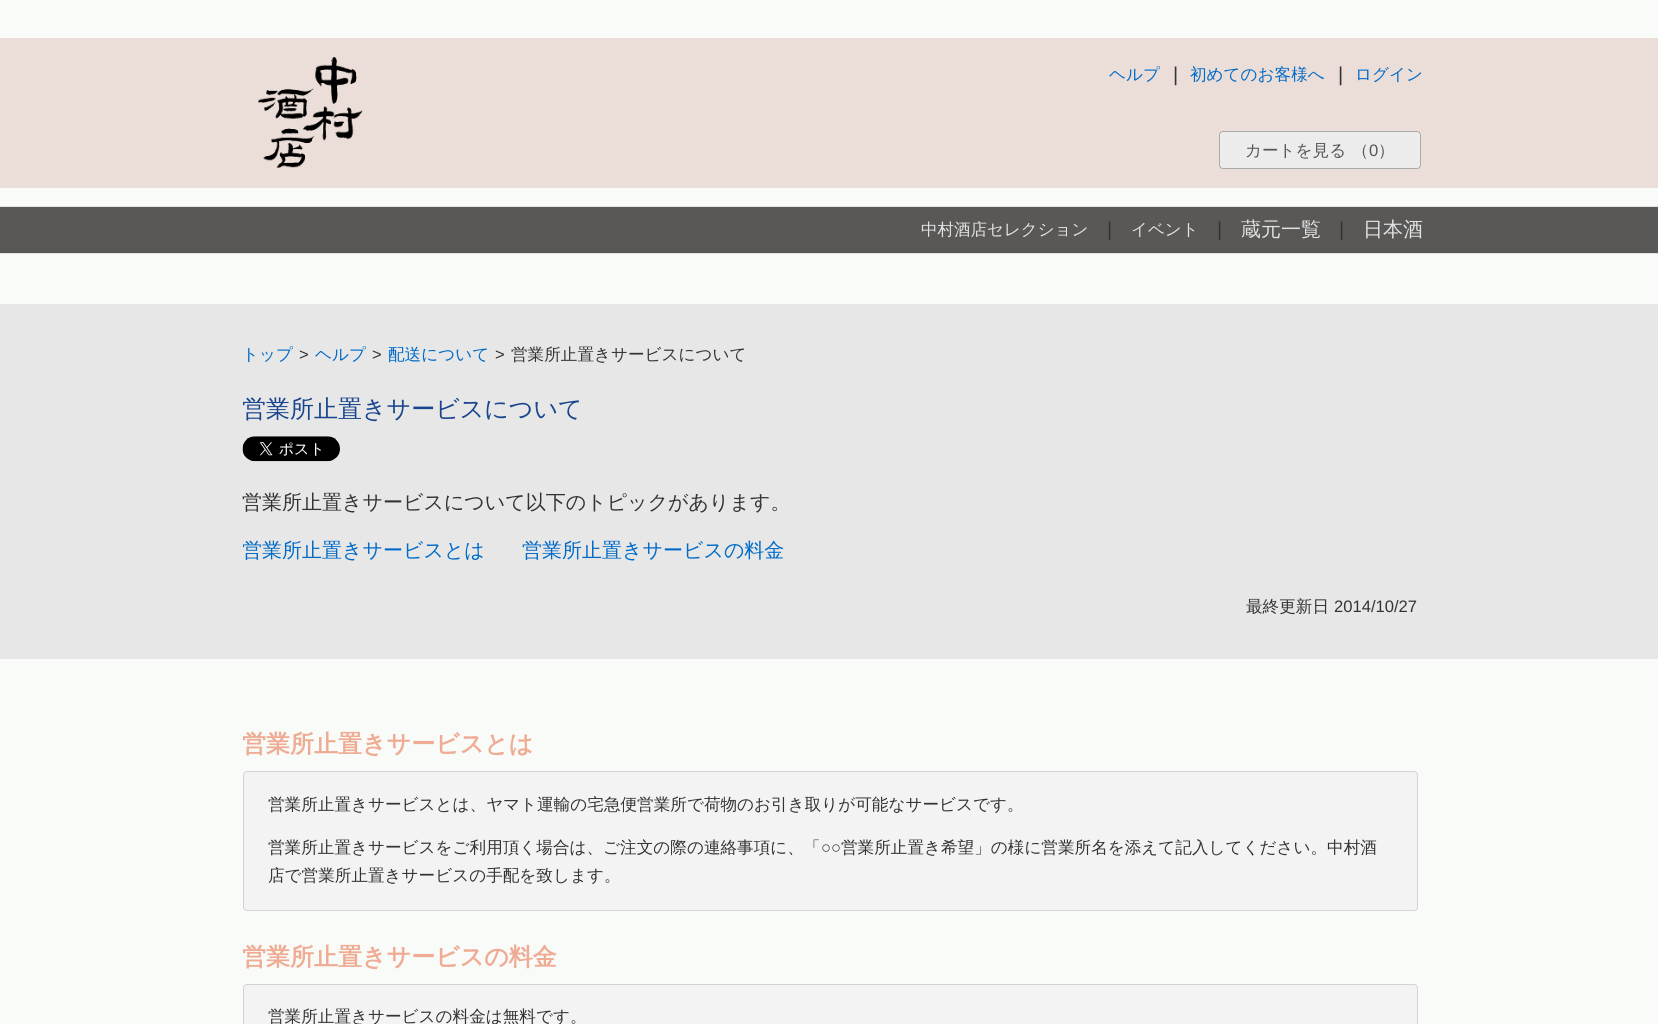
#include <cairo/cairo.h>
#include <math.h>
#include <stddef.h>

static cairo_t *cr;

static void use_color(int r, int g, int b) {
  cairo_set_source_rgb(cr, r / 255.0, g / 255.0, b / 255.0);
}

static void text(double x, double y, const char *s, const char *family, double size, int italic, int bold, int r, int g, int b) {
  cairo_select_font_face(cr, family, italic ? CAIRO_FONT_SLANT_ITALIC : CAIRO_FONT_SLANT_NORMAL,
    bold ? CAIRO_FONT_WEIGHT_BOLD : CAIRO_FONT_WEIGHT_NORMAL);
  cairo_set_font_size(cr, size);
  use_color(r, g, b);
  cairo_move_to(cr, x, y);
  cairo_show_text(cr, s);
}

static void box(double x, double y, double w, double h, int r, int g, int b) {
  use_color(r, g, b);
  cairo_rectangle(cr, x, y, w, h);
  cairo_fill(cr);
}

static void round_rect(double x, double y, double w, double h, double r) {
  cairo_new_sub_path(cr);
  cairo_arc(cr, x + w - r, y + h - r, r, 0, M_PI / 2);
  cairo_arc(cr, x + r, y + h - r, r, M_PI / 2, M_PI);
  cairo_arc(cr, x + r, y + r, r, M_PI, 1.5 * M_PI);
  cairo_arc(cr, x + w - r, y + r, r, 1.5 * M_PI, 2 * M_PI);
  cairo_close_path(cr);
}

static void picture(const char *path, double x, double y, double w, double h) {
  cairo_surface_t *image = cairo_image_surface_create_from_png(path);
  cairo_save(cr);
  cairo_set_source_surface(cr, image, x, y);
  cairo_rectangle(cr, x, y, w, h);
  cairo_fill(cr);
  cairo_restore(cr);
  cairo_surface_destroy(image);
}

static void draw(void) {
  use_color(248, 251, 248);
  cairo_paint(cr);
  box(0, 38, 1658, 150, 235, 221, 215);
  picture("img_01.png", 258, 57, 105, 111);
  use_color(236, 236, 236);
  round_rect(1219.5, 131.5, 201, 37, 3.5);
  cairo_fill_preserve(cr);
  use_color(170, 170, 170);
  cairo_set_line_width(cr, 1);
  cairo_stroke(cr);
  box(0, 207, 1658, 46, 89, 88, 87);
  box(0, 206, 1658, 1, 227, 227, 227);
  box(0, 253, 1658, 1, 227, 227, 227);
  box(0, 304, 1658, 355, 230, 231, 230);
  picture("img_02.png", 242, 436, 98, 26);
  use_color(243, 243, 243);
  round_rect(243.5, 771.5, 1174, 139, 3.5);
  cairo_fill_preserve(cr);
  use_color(211, 211, 211);
  cairo_stroke(cr);
  use_color(243, 243, 243);
  round_rect(243.5, 984.5, 1174, 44, 3.5);
  cairo_fill_preserve(cr);
  use_color(211, 211, 211);
  cairo_stroke(cr);
  text(1109, 80, "ヘルプ", "WenQuanYi Zen Hei Medium", 16.6, 0, 0, 0, 106, 200);
  text(1173, 81, "|", "Liberation Sans", 20, 0, 0, 51, 51, 51);
  text(1190, 80, "初めてのお客様へ", "WenQuanYi Zen Hei Medium", 16.6, 0, 0, 0, 106, 200);
  text(1338, 81, "|", "Liberation Sans", 20, 0, 0, 51, 51, 51);
  text(1355, 80, "ログイン", "WenQuanYi Zen Hei Medium", 16.6, 0, 0, 0, 106, 200);
  text(1245, 156, "カートを見る", "WenQuanYi Zen Hei Medium", 16.6, 0, 0, 85, 85, 85);
  text(1352, 156, "（", "WenQuanYi Zen Hei Medium", 16.6, 0, 0, 85, 85, 85);
  text(1369, 156, "0", "Liberation Sans", 16.6, 0, 0, 85, 85, 85);
  text(1378, 156, "）", "WenQuanYi Zen Hei Medium", 16.6, 0, 0, 85, 85, 85);
  text(921, 235, "中村酒店セレクション", "WenQuanYi Zen Hei Medium", 16.5, 0, 0, 227, 227, 227);
  text(1107, 236, "|", "Liberation Sans", 20, 0, 0, 51, 51, 51);
  text(1131, 235, "イベント", "WenQuanYi Zen Hei Medium", 16.5, 0, 0, 227, 227, 227);
  text(1217, 236, "|", "Liberation Sans", 20, 0, 0, 51, 51, 51);
  text(1241, 236, "蔵元一覧", "WenQuanYi Zen Hei Medium", 20, 0, 0, 227, 227, 227);
  text(1339, 236, "|", "Liberation Sans", 20, 0, 0, 51, 51, 51);
  text(1363, 236, "日本酒", "WenQuanYi Zen Hei Medium", 20, 0, 0, 227, 227, 227);
  text(242, 360, "トップ", "WenQuanYi Zen Hei Medium", 16.6, 0, 0, 0, 106, 200);
  text(299, 360, ">", "Liberation Sans", 16.6, 0, 0, 51, 51, 51);
  text(315, 360, "ヘルプ", "WenQuanYi Zen Hei Medium", 16.6, 0, 0, 0, 106, 200);
  text(372, 360, ">", "Liberation Sans", 16.6, 0, 0, 51, 51, 51);
  text(388, 360, "配送について", "WenQuanYi Zen Hei Medium", 16.6, 0, 0, 0, 106, 200);
  text(495, 360, ">", "Liberation Sans", 16.6, 0, 0, 51, 51, 51);
  text(511, 360, "営業所止置きサービスについて", "WenQuanYi Zen Hei Medium", 16.6, 0, 0, 51, 51, 51);
  cairo_save(cr);
  cairo_rectangle(cr, 243, 395, 1175, 29);
  cairo_clip(cr);
  text(242, 417, "営業所止置きサービスについて", "WenQuanYi Zen Hei Medium", 24, 0, 0, 25, 68, 142);
  cairo_restore(cr);
  text(242, 509, "営業所止置きサービスについて以下のトピックがあります。", "WenQuanYi Zen Hei Medium", 20, 0, 0, 51, 51, 51);
  cairo_save(cr);
  cairo_rectangle(cr, 243, 538, 1175, 36);
  cairo_clip(cr);
  text(242, 557, "営業所止置きサービスとは", "WenQuanYi Zen Hei Medium", 20, 0, 0, 0, 106, 200);
  cairo_restore(cr);
  text(522, 557, "営業所止置きサービスの料金", "WenQuanYi Zen Hei Medium", 20, 0, 0, 0, 106, 200);
  text(1246, 612, "最終更新日", "WenQuanYi Zen Hei Medium", 16.6, 0, 0, 51, 51, 51);
  text(1334, 612, "2014/10/27", "Liberation Sans", 16.6, 0, 0, 51, 51, 51);
  cairo_save(cr);
  cairo_rectangle(cr, 243, 730, 1175, 29);
  cairo_clip(cr);
  text(242, 752, "営業所止置きサービスとは", "WenQuanYi Zen Hei", 24, 0, 1, 239, 171, 147);
  cairo_restore(cr);
  text(268, 810, "営業所止置きサービスとは、ヤマト運輸の宅急便営業所で荷物のお引き取りが可能なサービスです。", "WenQuanYi Zen Hei Medium", 16.6, 0, 0, 51, 51, 51);
  text(268, 853, "営業所止置きサービスをご利用頂く場合は、ご注文の際の連絡事項に、「", "WenQuanYi Zen Hei Medium", 16.6, 0, 0, 51, 51, 51);
  text(821, 853, "○○", "Liberation Sans", 16.6, 0, 0, 51, 51, 51);
  text(841, 853, "営業所止置き希望」の様に営業所名を添えて記入してください。中村酒", "WenQuanYi Zen Hei Medium", 16.6, 0, 0, 51, 51, 51);
  text(268, 881, "店で営業所止置きサービスの手配を致します。", "WenQuanYi Zen Hei Medium", 16.6, 0, 0, 51, 51, 51);
  cairo_save(cr);
  cairo_rectangle(cr, 243, 943, 1175, 28);
  cairo_clip(cr);
  text(242, 965, "営業所止置きサービスの料金", "WenQuanYi Zen Hei", 24, 0, 1, 239, 171, 147);
  cairo_restore(cr);
  text(268, 1022, "営業所止置きサービスの料金は無料です。", "WenQuanYi Zen Hei Medium", 16.6, 0, 0, 51, 51, 51);
}

int main(void) {
  cairo_surface_t *surface = cairo_image_surface_create(CAIRO_FORMAT_RGB24, 1658, 1024);
  cr = cairo_create(surface);
  cairo_font_options_t *options = cairo_font_options_create();
  cairo_font_options_set_hint_metrics(options, CAIRO_HINT_METRICS_OFF);
  cairo_font_options_set_hint_style(options, CAIRO_HINT_STYLE_NONE);
  cairo_set_font_options(cr, options);
  cairo_set_miter_limit(cr, 4);
  draw();
  cairo_surface_write_to_png(surface, "out.png");
  cairo_font_options_destroy(options);
  cairo_destroy(cr);
  cairo_surface_destroy(surface);
  return 0;
}
